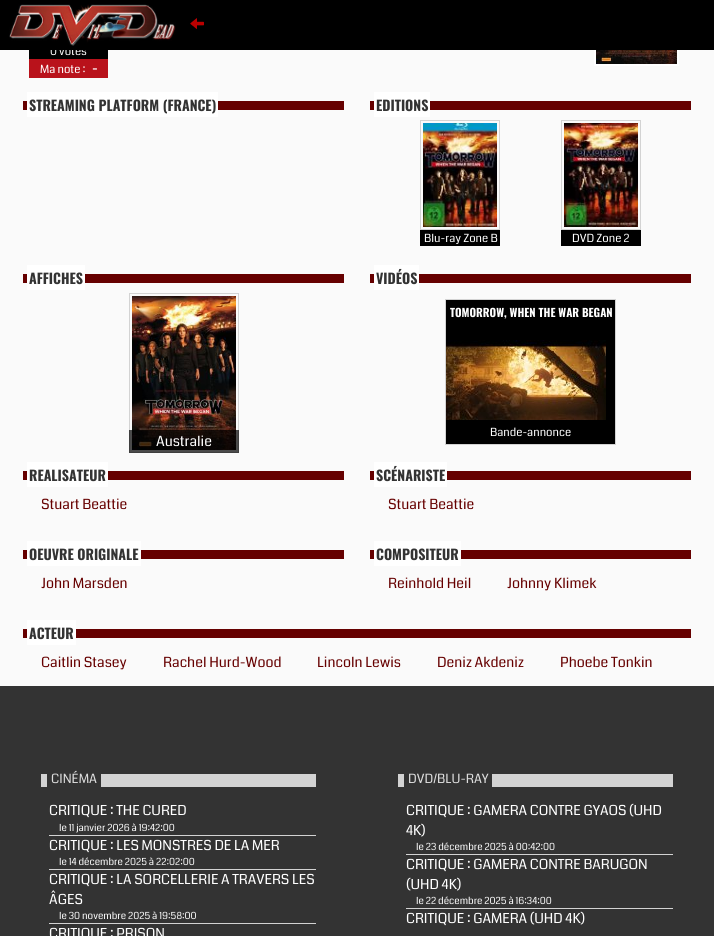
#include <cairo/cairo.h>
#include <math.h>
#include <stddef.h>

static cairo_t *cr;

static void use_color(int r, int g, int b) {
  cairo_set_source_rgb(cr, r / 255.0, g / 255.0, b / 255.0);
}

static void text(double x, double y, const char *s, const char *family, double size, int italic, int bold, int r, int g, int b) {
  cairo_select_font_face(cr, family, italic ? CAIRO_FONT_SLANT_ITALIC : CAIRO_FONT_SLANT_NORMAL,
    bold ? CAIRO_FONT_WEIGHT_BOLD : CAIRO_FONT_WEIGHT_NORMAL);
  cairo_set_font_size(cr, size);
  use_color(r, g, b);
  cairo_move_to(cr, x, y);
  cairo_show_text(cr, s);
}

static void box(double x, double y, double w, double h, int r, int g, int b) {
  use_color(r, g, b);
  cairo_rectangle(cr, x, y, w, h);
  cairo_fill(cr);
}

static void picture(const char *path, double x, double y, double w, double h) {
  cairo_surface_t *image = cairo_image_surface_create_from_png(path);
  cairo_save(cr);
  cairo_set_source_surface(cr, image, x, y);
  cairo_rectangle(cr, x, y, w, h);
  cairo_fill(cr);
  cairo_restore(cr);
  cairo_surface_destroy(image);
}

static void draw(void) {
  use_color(51, 51, 51);
  cairo_paint(cr);
  box(0, 50, 714, 636, 250, 250, 250);
  box(29, 50, 79, 9, 0, 0, 0);
  box(29, 59, 79, 19, 185, 18, 27);
  cairo_rectangle(cr, 595, -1, 83, 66);
  use_color(255, 255, 255);
  cairo_stroke(cr);
  picture("img_03.png", 596, 50, 81, 14);
  box(23, 101, 321, 9, 102, 0, 0);
  box(27, 92, 191, 25, 255, 255, 255);
  box(370, 101, 321, 9, 102, 0, 0);
  box(374, 92, 56, 25, 255, 255, 255);
  cairo_rectangle(cr, 420.5, 120.5, 79, 109);
  use_color(211, 211, 211);
  cairo_set_line_width(cr, 1);
  cairo_stroke(cr);
  picture("img_04.png", 423, 123, 74, 104);
  box(420, 230, 80, 16, 0, 0, 0);
  cairo_rectangle(cr, 561.5, 120.5, 79, 109);
  use_color(211, 211, 211);
  cairo_stroke(cr);
  picture("img_05.png", 564, 123, 74, 104);
  box(561, 230, 80, 16, 0, 0, 0);
  box(23, 274, 321, 9, 102, 0, 0);
  box(27, 265, 58, 25, 255, 255, 255);
  cairo_rectangle(cr, 129.5, 293.5, 109, 159);
  use_color(211, 211, 211);
  cairo_stroke(cr);
  picture("img_06.png", 132, 296, 104, 154);
  cairo_set_source_rgba(cr, 0, 0, 0, 0.7);
  cairo_rectangle(cr, 129, 430, 110, 23);
  cairo_fill(cr);
  box(370, 274, 321, 9, 102, 0, 0);
  box(374, 265, 45, 25, 255, 255, 255);
  box(446, 300, 169, 120, 0, 0, 0);
  cairo_rectangle(cr, 445.5, 299.5, 170, 145);
  use_color(211, 211, 211);
  cairo_stroke(cr);
  picture("img_07.png", 446, 340, 160, 80);
  box(446, 420, 169, 24, 0, 0, 0);
  box(23, 471, 321, 9, 102, 0, 0);
  box(27, 462, 81, 25, 255, 255, 255);
  box(370, 471, 321, 9, 102, 0, 0);
  box(374, 462, 73, 25, 255, 255, 255);
  box(23, 550, 321, 9, 102, 0, 0);
  box(27, 541, 114, 25, 255, 255, 255);
  box(370, 550, 321, 9, 102, 0, 0);
  box(374, 541, 87, 25, 255, 255, 255);
  box(23, 629, 668, 9, 102, 0, 0);
  box(27, 620, 49, 25, 255, 255, 255);
  box(41, 774, 275, 13, 211, 211, 211);
  box(47, 774, 54, 13, 51, 51, 51);
  box(49, 835, 267, 1, 211, 211, 211);
  box(49, 869, 267, 1, 211, 211, 211);
  box(49, 923, 267, 1, 211, 211, 211);
  box(398, 774, 275, 13, 211, 211, 211);
  box(404, 774, 88, 13, 51, 51, 51);
  box(406, 854, 267, 1, 211, 211, 211);
  box(406, 908, 267, 1, 211, 211, 211);
  text(50, 55, "0 votes", "Coda", 11.25, 0, 0, 255, 255, 255);
  box(0, 0, 714, 50, 0, 0, 0);
  picture("img_02.png", 190, 18, 14, 11);
  picture("img_01.png", 9, 4, 167, 42);
  text(40, 73, "Ma note :", "Coda", 11.25, 0, 0, 255, 255, 255);
  text(92, 73, "-", "Coda", 13, 0, 1, 255, 255, 255);
  text(29, 111, "STREAMING PLATFORM (FRANCE)", "Oswald", 14, 0, 1, 51, 51, 51);
  text(376, 111, "EDITIONS", "Oswald", 14, 0, 1, 51, 51, 51);
  text(424, 242, "Blu-ray Zone B", "Coda", 11.25, 0, 0, 255, 255, 255);
  text(572, 242, "DVD Zone 2", "Coda", 11.25, 0, 0, 255, 255, 255);
  text(29, 284, "AFFICHES", "Oswald", 14, 0, 1, 51, 51, 51);
  text(156, 446, "Australie", "Coda", 14, 0, 0, 255, 255, 255);
  text(376, 284, "VIDÉOS", "Oswald", 14, 0, 1, 51, 51, 51);
  text(450, 317, "TOMORROW, WHEN THE WAR BEGAN", "Oswald", 11.25, 0, 1, 255, 255, 255);
  text(490, 436, "Bande-annonce", "Coda", 11.25, 0, 0, 255, 255, 255);
  text(29, 481, "REALISATEUR", "Oswald", 14, 0, 1, 51, 51, 51);
  text(41, 509, "Stuart Beattie", "Coda", 14, 0, 0, 102, 0, 0);
  text(376, 481, "SCÉNARISTE", "Oswald", 14, 0, 1, 51, 51, 51);
  text(388, 509, "Stuart Beattie", "Coda", 14, 0, 0, 102, 0, 0);
  text(29, 560, "OEUVRE ORIGINALE", "Oswald", 14, 0, 1, 51, 51, 51);
  text(41, 588, "John Marsden", "Coda", 14, 0, 0, 102, 0, 0);
  text(376, 560, "COMPOSITEUR", "Oswald", 14, 0, 1, 51, 51, 51);
  text(388, 588, "Reinhold Heil", "Coda", 14, 0, 0, 102, 0, 0);
  text(507, 588, "Johnny Klimek", "Coda", 14, 0, 0, 102, 0, 0);
  text(29, 639, "ACTEUR", "Oswald", 14, 0, 1, 51, 51, 51);
  text(41, 667, "Caitlin Stasey", "Coda", 14, 0, 0, 102, 0, 0);
  text(163, 667, "Rachel Hurd-Wood", "Coda", 14, 0, 0, 102, 0, 0);
  text(317, 667, "Lincoln Lewis", "Coda", 14, 0, 0, 102, 0, 0);
  text(437, 667, "Deniz Akdeniz", "Coda", 14, 0, 0, 102, 0, 0);
  text(560, 667, "Phoebe Tonkin", "Coda", 14, 0, 0, 102, 0, 0);
  text(51, 783, "CINÉMA", "Coda", 12.75, 0, 0, 221, 221, 221);
  text(49, 815, "CRITIQUE : THE CURED", "Coda", 13.75, 0, 0, 255, 255, 255);
  text(59, 831, "le 11 janvier 2026 à 19:42:00", "Coda", 9.75, 0, 0, 255, 255, 255);
  text(49, 850, "CRITIQUE : LES MONSTRES DE LA MER", "Coda", 13.75, 0, 0, 255, 255, 255);
  text(59, 865, "le 14 décembre 2025 à 22:02:00", "Coda", 9.75, 0, 0, 255, 255, 255);
  text(49, 884, "CRITIQUE : LA SORCELLERIE A TRAVERS LES", "Coda", 13.75, 0, 0, 255, 255, 255);
  text(49, 904, "ÂGES", "Coda", 13.75, 0, 0, 255, 255, 255);
  text(59, 919, "le 30 novembre 2025 à 19:58:00", "Coda", 9.75, 0, 0, 255, 255, 255);
  text(49, 938, "CRITIQUE : PRISON", "Coda", 13.75, 0, 0, 255, 255, 255);
  text(408, 783, "DVD/BLU-RAY", "Coda", 12.75, 0, 0, 221, 221, 221);
  text(406, 815, "CRITIQUE : GAMERA CONTRE GYAOS (UHD", "Coda", 13.75, 0, 0, 255, 255, 255);
  text(406, 835, "4K)", "Coda", 13.75, 0, 0, 255, 255, 255);
  text(416, 850, "le 23 décembre 2025 à 00:42:00", "Coda", 9.75, 0, 0, 255, 255, 255);
  text(406, 869, "CRITIQUE : GAMERA CONTRE BARUGON", "Coda", 13.75, 0, 0, 255, 255, 255);
  text(406, 889, "(UHD 4K)", "Coda", 13.75, 0, 0, 255, 255, 255);
  text(416, 904, "le 22 décembre 2025 à 16:34:00", "Coda", 9.75, 0, 0, 255, 255, 255);
  text(406, 923, "CRITIQUE : GAMERA (UHD 4K)", "Coda", 13.75, 0, 0, 255, 255, 255);
}

int main(void) {
  cairo_surface_t *surface = cairo_image_surface_create(CAIRO_FORMAT_RGB24, 714, 936);
  cr = cairo_create(surface);
  cairo_font_options_t *options = cairo_font_options_create();
  cairo_font_options_set_hint_metrics(options, CAIRO_HINT_METRICS_OFF);
  cairo_font_options_set_hint_style(options, CAIRO_HINT_STYLE_NONE);
  cairo_set_font_options(cr, options);
  cairo_set_miter_limit(cr, 4);
  draw();
  cairo_surface_write_to_png(surface, "out.png");
  cairo_font_options_destroy(options);
  cairo_destroy(cr);
  cairo_surface_destroy(surface);
  return 0;
}
